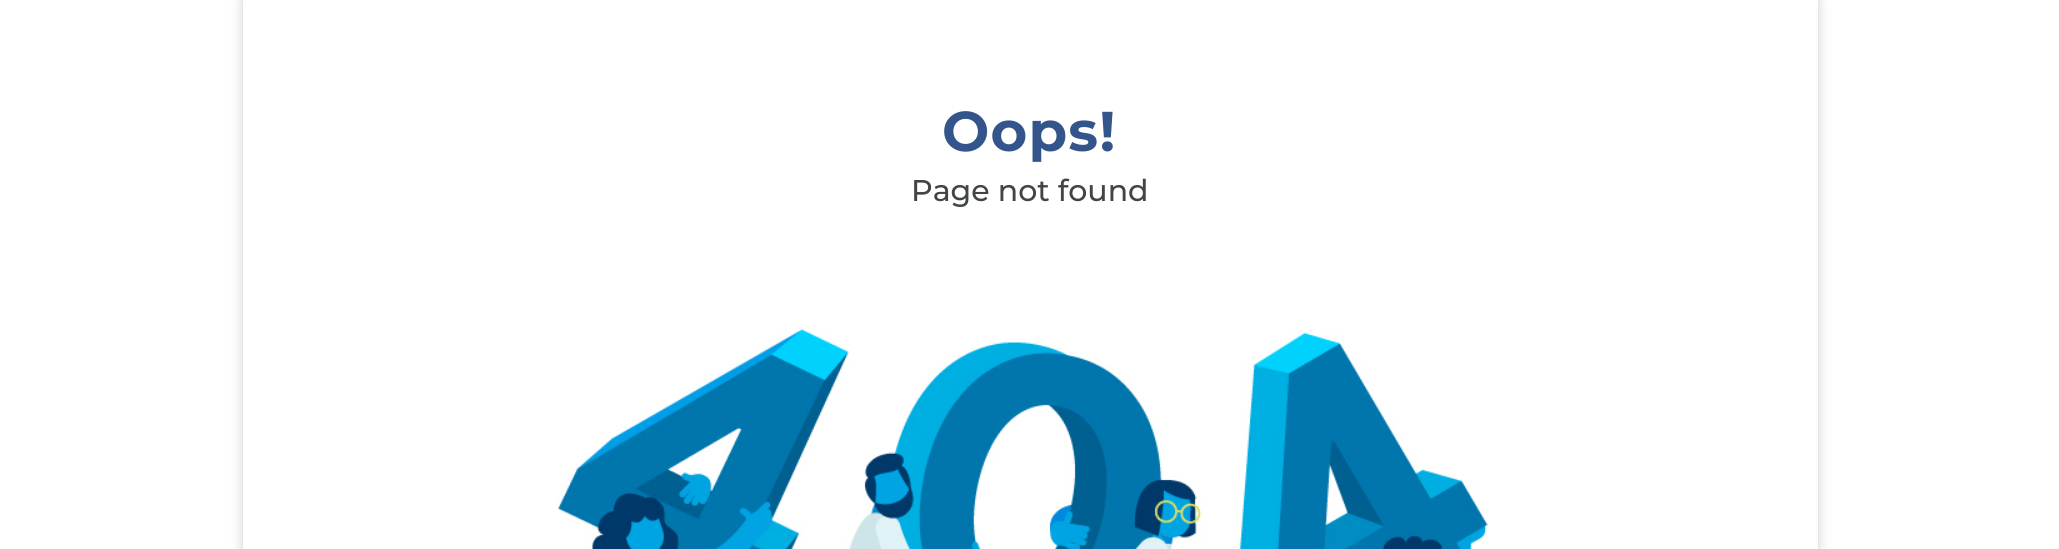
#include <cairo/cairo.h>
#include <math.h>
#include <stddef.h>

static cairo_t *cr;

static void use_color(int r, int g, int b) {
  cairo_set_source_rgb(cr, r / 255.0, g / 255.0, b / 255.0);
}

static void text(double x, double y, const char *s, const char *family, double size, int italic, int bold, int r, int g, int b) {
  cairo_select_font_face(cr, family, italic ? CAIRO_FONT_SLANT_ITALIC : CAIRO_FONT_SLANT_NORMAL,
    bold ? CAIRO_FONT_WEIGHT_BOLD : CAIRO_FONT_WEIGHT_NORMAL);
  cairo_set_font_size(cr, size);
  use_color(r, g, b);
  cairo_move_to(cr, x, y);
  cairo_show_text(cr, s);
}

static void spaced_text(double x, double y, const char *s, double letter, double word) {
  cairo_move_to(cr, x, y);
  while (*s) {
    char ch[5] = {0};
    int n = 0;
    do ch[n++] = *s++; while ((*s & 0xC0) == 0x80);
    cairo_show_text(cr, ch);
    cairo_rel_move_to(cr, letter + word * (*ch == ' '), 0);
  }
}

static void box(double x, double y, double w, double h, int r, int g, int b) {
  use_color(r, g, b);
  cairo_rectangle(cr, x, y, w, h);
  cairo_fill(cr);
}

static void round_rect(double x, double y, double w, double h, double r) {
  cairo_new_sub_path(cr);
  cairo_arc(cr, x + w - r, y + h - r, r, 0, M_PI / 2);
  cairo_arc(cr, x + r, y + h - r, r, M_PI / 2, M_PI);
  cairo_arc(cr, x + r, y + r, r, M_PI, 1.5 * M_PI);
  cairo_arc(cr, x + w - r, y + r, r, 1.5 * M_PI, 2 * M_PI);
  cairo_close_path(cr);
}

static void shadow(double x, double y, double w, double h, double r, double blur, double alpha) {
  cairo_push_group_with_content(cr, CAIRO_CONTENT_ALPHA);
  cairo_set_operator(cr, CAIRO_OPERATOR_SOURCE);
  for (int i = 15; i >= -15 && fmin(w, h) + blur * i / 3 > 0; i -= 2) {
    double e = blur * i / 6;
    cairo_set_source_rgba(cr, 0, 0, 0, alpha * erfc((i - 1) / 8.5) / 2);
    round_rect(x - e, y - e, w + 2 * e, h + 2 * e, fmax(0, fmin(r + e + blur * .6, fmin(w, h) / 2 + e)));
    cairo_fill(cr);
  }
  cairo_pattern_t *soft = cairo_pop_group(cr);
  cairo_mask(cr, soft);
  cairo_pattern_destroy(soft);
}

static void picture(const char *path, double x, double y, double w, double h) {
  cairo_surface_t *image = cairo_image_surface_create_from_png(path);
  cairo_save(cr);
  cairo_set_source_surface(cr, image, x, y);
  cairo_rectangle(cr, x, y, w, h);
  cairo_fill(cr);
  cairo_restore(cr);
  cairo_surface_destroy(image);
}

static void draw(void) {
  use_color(255, 255, 255);
  cairo_paint(cr);
  use_color(0, 0, 0);
  shadow(243, 0, 1575, 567, 0, 6, 0.2);
  box(243, 0, 1575, 549, 255, 255, 255);
  picture("img_01.png", 557, 328, 931, 221);
  cairo_select_font_face(cr, "Montserrat", CAIRO_FONT_SLANT_NORMAL, CAIRO_FONT_WEIGHT_BOLD);
  cairo_set_font_size(cr, 56);
  use_color(52, 85, 139);
  spaced_text(942, 151, "Oops!", 1.25, 0);
  text(911, 201, "Page not found", "Montserrat Medium", 30, 0, 0, 65, 69, 68);
}

int main(void) {
  cairo_surface_t *surface = cairo_image_surface_create(CAIRO_FORMAT_RGB24, 2059, 549);
  cr = cairo_create(surface);
  cairo_font_options_t *options = cairo_font_options_create();
  cairo_font_options_set_hint_metrics(options, CAIRO_HINT_METRICS_OFF);
  cairo_font_options_set_hint_style(options, CAIRO_HINT_STYLE_NONE);
  cairo_set_font_options(cr, options);
  cairo_set_miter_limit(cr, 4);
  draw();
  cairo_surface_write_to_png(surface, "out.png");
  cairo_font_options_destroy(options);
  cairo_destroy(cr);
  cairo_surface_destroy(surface);
  return 0;
}
